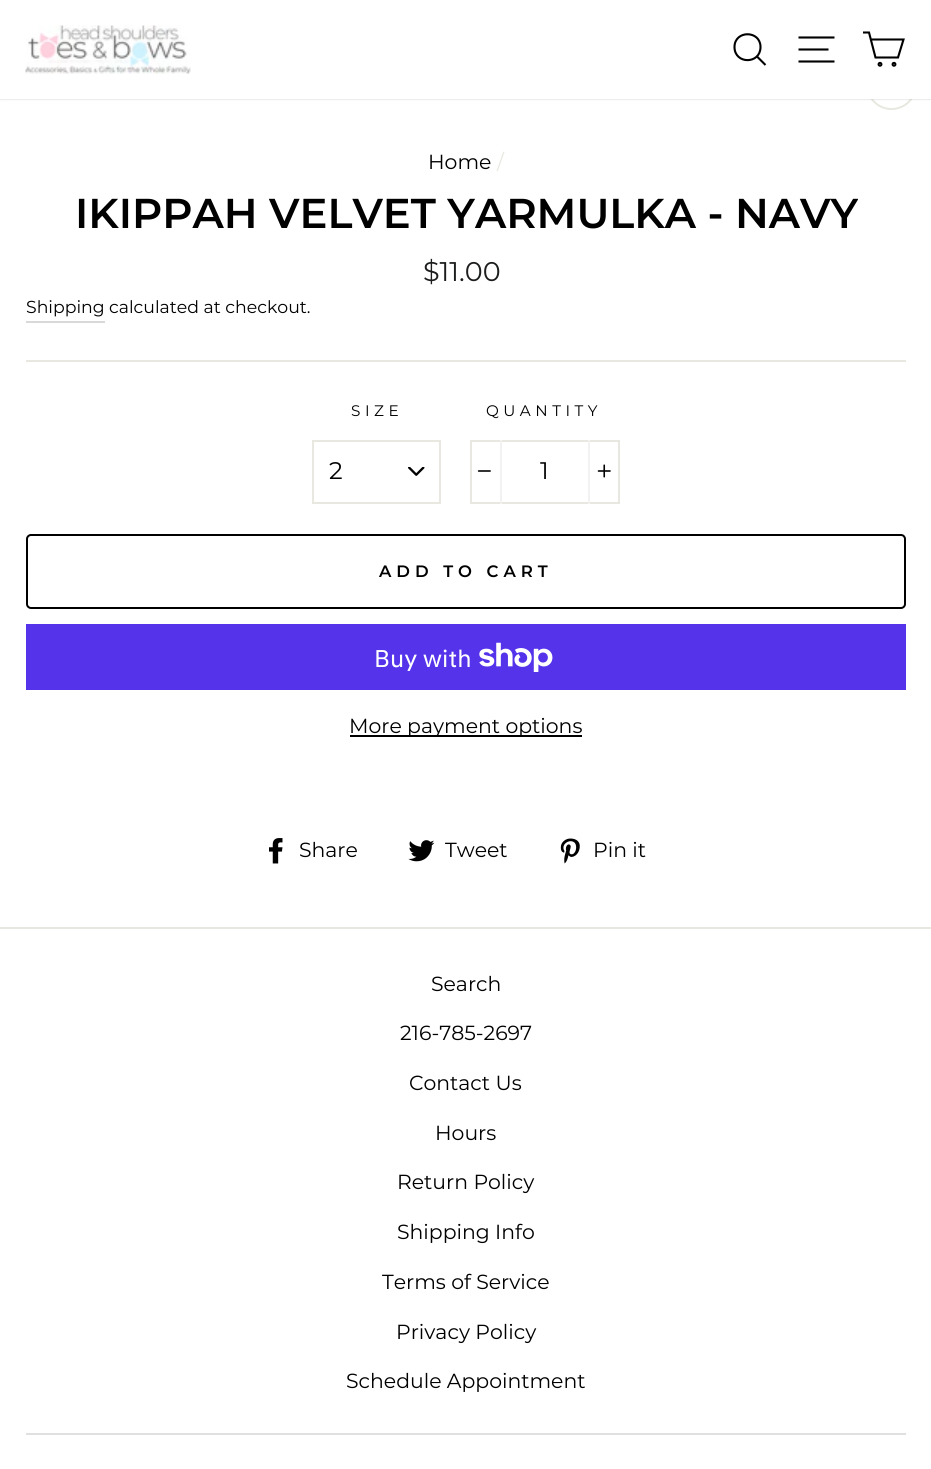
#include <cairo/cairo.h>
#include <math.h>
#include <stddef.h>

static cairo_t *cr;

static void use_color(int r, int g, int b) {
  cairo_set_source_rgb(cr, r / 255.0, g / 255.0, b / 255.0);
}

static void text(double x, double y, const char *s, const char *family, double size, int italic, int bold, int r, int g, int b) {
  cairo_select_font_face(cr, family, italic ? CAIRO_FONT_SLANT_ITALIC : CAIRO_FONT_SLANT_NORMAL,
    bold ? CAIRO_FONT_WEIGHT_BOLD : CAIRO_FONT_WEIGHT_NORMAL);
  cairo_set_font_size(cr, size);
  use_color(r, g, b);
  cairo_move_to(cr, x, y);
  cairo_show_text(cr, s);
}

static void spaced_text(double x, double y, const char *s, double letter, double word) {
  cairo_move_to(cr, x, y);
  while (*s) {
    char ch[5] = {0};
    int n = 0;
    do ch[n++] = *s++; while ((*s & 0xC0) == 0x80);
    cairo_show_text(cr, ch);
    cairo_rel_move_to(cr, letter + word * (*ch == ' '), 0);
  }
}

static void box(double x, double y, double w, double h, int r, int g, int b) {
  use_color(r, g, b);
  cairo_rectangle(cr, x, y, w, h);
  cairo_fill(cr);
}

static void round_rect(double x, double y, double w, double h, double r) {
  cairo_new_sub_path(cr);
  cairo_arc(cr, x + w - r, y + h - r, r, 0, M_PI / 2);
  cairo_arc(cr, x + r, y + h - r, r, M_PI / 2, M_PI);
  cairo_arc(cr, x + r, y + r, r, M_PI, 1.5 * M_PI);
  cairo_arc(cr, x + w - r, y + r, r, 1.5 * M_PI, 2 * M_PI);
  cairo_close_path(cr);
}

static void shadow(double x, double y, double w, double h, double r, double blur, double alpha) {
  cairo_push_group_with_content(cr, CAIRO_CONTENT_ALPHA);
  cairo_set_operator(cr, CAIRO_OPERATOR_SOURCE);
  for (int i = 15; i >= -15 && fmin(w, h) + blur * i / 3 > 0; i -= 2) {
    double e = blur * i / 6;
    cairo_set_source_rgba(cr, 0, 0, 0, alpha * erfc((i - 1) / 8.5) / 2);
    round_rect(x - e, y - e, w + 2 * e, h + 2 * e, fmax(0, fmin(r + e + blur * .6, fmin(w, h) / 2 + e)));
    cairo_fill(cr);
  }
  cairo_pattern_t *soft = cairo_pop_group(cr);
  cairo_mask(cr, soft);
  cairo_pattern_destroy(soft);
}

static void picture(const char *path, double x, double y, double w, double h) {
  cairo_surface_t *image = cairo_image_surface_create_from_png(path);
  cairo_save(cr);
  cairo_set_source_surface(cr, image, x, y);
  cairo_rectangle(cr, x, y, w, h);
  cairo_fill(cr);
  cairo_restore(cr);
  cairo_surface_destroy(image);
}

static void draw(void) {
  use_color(255, 255, 255);
  cairo_paint(cr);
  cairo_arc(cr, 891.5, 84.5, 24.5, 0, 2 * M_PI);
  use_color(232, 232, 225);
  cairo_stroke(cr);
  use_color(0, 0, 0);
  shadow(0, 0, 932, 99, 0, 1, 0.2);
  box(0, 0, 931, 99, 255, 255, 255);
  picture("img_01.png", 25, 25, 166, 49);
  cairo_new_path(cr);
  cairo_move_to(cr, 760.5, 47);
  cairo_curve_to(cr, 760.5, 64.5, 734.5, 64.5, 734.5, 47);
  cairo_curve_to(cr, 734.5, 30, 760.5, 30, 760.5, 47);
  cairo_close_path(cr);
  cairo_move_to(cr, 765.5, 65);
  cairo_line_to(cr, 757, 56.5);
  use_color(0, 0, 0);
  cairo_set_line_width(cr, 2.1);
  cairo_stroke(cr);
  cairo_new_path(cr);
  cairo_move_to(cr, 798.5, 37.5);
  cairo_line_to(cr, 834.5, 37.5);
  cairo_move_to(cr, 798.5, 49.5);
  cairo_line_to(cr, 828.5, 49.5);
  cairo_move_to(cr, 798.5, 61.5);
  cairo_line_to(cr, 834.5, 61.5);
  cairo_stroke(cr);
  cairo_new_path(cr);
  cairo_move_to(cr, 871, 39.5);
  cairo_line_to(cr, 903.5, 39.5);
  cairo_line_to(cr, 898, 57.5);
  cairo_line_to(cr, 875.5, 57.5);
  cairo_line_to(cr, 869, 32.5);
  cairo_line_to(cr, 863, 32.5);
  cairo_stroke(cr);
  cairo_arc(cr, 880, 64.3, 1.4, 0, 2 * M_PI);
  cairo_stroke(cr);
  cairo_arc(cr, 894, 64.3, 1.4, 0, 2 * M_PI);
  cairo_stroke(cr);
  box(26, 321, 79, 2, 217, 217, 217);
  box(26, 360, 880, 2, 232, 232, 225);
  picture("img_02.png", 408, 467, 17, 9);
  cairo_rectangle(cr, 313, 441, 127, 62);
  cairo_set_line_width(cr, 2);
  cairo_stroke(cr);
  cairo_rectangle(cr, 471, 441, 148, 62);
  cairo_stroke(cr);
  box(500, 440, 2, 64, 242, 242, 242);
  picture("img_03.png", 477, 470, 14, 2);
  box(588, 440, 2, 64, 242, 242, 242);
  picture("img_04.png", 597, 464, 14, 14);
  round_rect(27, 535, 878, 73, 4);
  use_color(0, 0, 0);
  cairo_stroke(cr);
  box(26, 624, 880, 66, 84, 51, 235);
  picture("img_05.png", 479, 642, 74, 30);
  box(350, 735, 232, 2, 0, 0, 0);
  picture("img_06.png", 269, 838, 14, 26);
  picture("img_07.png", 408, 840, 27, 22);
  picture("img_08.png", 560, 838, 20, 26);
  box(0, 927, 931, 2, 232, 232, 225);
  box(26, 1433, 880, 2, 224, 224, 224);
  text(428, 169, "Home", "Montserrat", 20.4, 0, 0, 0, 0, 0);
  text(497, 169, "/", "Montserrat", 20.4, 0, 0, 232, 232, 225);
  text(75, 228, "IKIPPAH VELVET YARMULKA - NAVY", "Montserrat SemiBold", 41.7, 0, 0, 0, 0, 0);
  text(423, 281, "$11.00", "Montserrat", 27, 0, 0, 28, 29, 29);
  text(26, 313, "Shipping", "Montserrat", 17.3, 0, 0, 0, 0, 0);
  text(109, 313, "calculated at checkout.", "Montserrat", 17.3, 0, 0, 0, 0, 0);
  cairo_set_font_size(cr, 15.25);
  spaced_text(351, 416, "SIZE", 4.5, 0);
  text(329, 479, "2", "Montserrat", 24, 0, 0, 0, 0, 0);
  cairo_set_font_size(cr, 15.25);
  spaced_text(486, 416, "QUANTITY", 4.5, 0);
  text(540, 479, "1", "Montserrat", 24, 0, 0, 0, 0, 0);
  cairo_select_font_face(cr, "Montserrat SemiBold", CAIRO_FONT_SLANT_NORMAL, CAIRO_FONT_WEIGHT_NORMAL);
  cairo_set_font_size(cr, 16.5);
  spaced_text(379, 577, "ADD TO CART", 5, 0);
  text(374, 667, "Buy with", "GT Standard", 24, 0, 0, 255, 255, 255);
  text(349, 733, "More payment options", "Montserrat", 20.4, 0, 0, 0, 0, 0);
  text(299, 857, "Share", "Montserrat", 20.4, 0, 0, 0, 0, 0);
  text(445, 857, "Tweet", "Montserrat", 20.4, 0, 0, 0, 0, 0);
  text(593, 857, "Pin it", "Montserrat", 20.4, 0, 0, 0, 0, 0);
  text(431, 991, "Search", "Montserrat", 20.4, 0, 0, 0, 0, 0);
  text(400, 1040, "216-785-2697", "Montserrat", 20.4, 0, 0, 0, 0, 0);
  text(409, 1090, "Contact Us", "Montserrat", 20.4, 0, 0, 0, 0, 0);
  text(435, 1140, "Hours", "Montserrat", 20.4, 0, 0, 0, 0, 0);
  text(397, 1189, "Return Policy", "Montserrat", 20.4, 0, 0, 0, 0, 0);
  text(397, 1239, "Shipping Info", "Montserrat", 20.4, 0, 0, 0, 0, 0);
  text(382, 1289, "Terms of Service", "Montserrat", 20.4, 0, 0, 0, 0, 0);
  text(396, 1339, "Privacy Policy", "Montserrat", 20.4, 0, 0, 0, 0, 0);
  text(346, 1388, "Schedule Appointment", "Montserrat", 20.4, 0, 0, 0, 0, 0);
}

int main(void) {
  cairo_surface_t *surface = cairo_image_surface_create(CAIRO_FORMAT_RGB24, 931, 1469);
  cr = cairo_create(surface);
  cairo_font_options_t *options = cairo_font_options_create();
  cairo_font_options_set_hint_metrics(options, CAIRO_HINT_METRICS_OFF);
  cairo_font_options_set_hint_style(options, CAIRO_HINT_STYLE_NONE);
  cairo_set_font_options(cr, options);
  cairo_set_miter_limit(cr, 4);
  draw();
  cairo_surface_write_to_png(surface, "out.png");
  cairo_font_options_destroy(options);
  cairo_destroy(cr);
  cairo_surface_destroy(surface);
  return 0;
}
